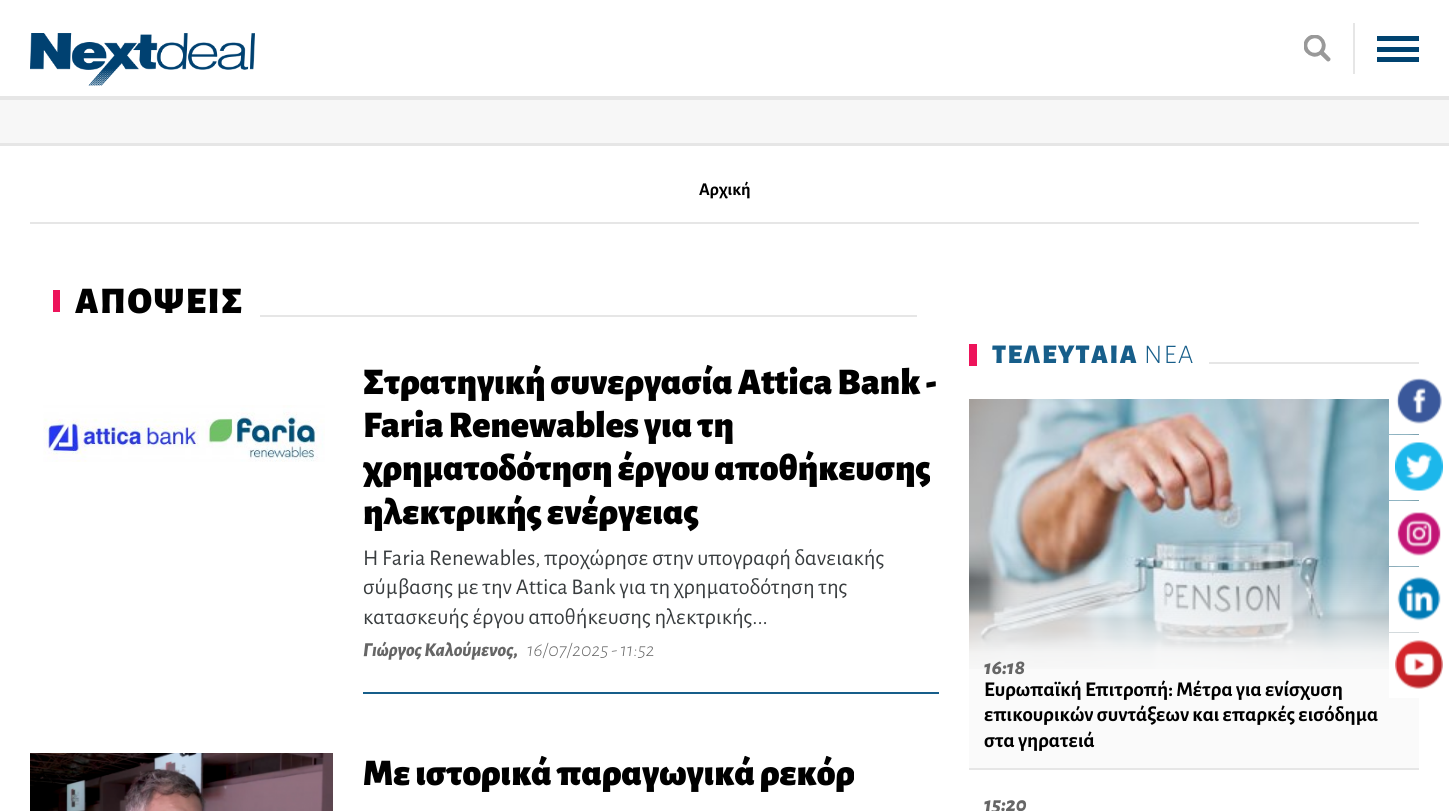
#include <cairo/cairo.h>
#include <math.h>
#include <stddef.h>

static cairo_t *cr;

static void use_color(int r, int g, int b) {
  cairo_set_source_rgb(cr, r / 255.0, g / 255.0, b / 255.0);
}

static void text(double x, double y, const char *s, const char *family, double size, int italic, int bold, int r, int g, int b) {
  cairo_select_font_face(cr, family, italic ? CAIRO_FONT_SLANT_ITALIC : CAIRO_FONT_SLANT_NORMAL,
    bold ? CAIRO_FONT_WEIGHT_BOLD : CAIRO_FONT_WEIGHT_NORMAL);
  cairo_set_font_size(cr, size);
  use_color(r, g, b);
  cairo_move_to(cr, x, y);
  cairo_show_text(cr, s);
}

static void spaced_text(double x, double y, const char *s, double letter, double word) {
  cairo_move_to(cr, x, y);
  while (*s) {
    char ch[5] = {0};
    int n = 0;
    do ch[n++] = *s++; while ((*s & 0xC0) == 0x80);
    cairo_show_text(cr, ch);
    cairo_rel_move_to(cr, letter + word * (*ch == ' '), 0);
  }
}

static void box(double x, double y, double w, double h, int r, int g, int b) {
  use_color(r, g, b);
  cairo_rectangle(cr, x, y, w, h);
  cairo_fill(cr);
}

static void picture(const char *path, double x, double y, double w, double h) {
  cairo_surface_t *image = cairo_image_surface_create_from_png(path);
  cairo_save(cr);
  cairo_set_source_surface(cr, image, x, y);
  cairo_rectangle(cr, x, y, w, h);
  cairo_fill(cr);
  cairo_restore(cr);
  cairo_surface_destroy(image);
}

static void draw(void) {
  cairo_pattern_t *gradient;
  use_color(255, 255, 255);
  cairo_paint(cr);
  picture("img_01.png", 30, 33, 225, 53);
  box(1353, 23, 2, 51, 230, 230, 230);
  picture("img_02.png", 1304, 35, 27, 27);
  box(1377, 47, 42, 5, 0, 67, 112);
  box(1377, 36, 42, 5, 0, 67, 112);
  box(1377, 57, 42, 5, 0, 67, 112);
  box(0, 96, 1449, 4, 230, 230, 230);
  box(0, 100, 1449, 43, 247, 247, 247);
  box(0, 143, 1449, 3, 230, 230, 230);
  box(30, 222, 1389, 2, 230, 230, 230);
  box(53, 290, 7, 22, 237, 20, 91);
  box(260, 315, 657, 2, 230, 230, 230);
  picture("img_03.png", 43, 405, 282, 57);
  box(363, 692, 576, 2, 23, 94, 138);
  picture("img_04.png", 30, 753, 303, 58);
  box(969, 344, 8, 22, 237, 20, 91);
  box(1209, 362, 210, 2, 230, 230, 230);
  box(969, 669, 450, 99, 250, 250, 250);
  box(969, 768, 450, 2, 230, 230, 230);
  picture("img_05.png", 969, 399, 450, 270);
  gradient = cairo_pattern_create_linear(1194, 557, 1194, 677);
  cairo_pattern_add_color_stop_rgba(gradient, 0, 0.976, 0.976, 0.976, 0);
  cairo_pattern_add_color_stop_rgba(gradient, 0.8, 0.976, 0.976, 0.976, 0.95);
  cairo_pattern_add_color_stop_rgba(gradient, 1, 0.976, 0.976, 0.976, 1);
  cairo_set_source(cr, gradient);
  cairo_pattern_destroy(gradient);
  cairo_rectangle(cr, 969, 559, 450, 110);
  cairo_fill(cr);
  box(1389, 399, 30, 35, 255, 255, 255);
  picture("img_06.png", 1396, 378, 46, 46);
  box(1389, 435, 30, 65, 255, 255, 255);
  picture("img_07.png", 1395, 442, 48, 49);
  box(1389, 501, 30, 65, 255, 255, 255);
  picture("img_08.png", 1397, 512, 44, 44);
  box(1389, 567, 30, 65, 255, 255, 255);
  picture("img_09.png", 1397, 576, 44, 45);
  box(1389, 633, 30, 65, 255, 255, 255);
  picture("img_10.png", 1395, 640, 48, 49);
  text(699, 195, "Αρχική", "Alegreya Sans", 18, 0, 1, 0, 0, 0);
  cairo_select_font_face(cr, "Alegreya Sans Black", CAIRO_FONT_SLANT_NORMAL, CAIRO_FONT_WEIGHT_NORMAL);
  cairo_set_font_size(cr, 37.5);
  spaced_text(75, 313, "ΑΠΟΨΕΙΣ", 1.5, 0);
  text(363, 394, "Στρατηγική συνεργασία Attica Bank -", "Alegreya Sans Black", 37.5, 0, 0, 0, 0, 0);
  text(363, 437, "Faria Renewables για τη", "Alegreya Sans Black", 37.5, 0, 0, 0, 0, 0);
  text(363, 480, "χρηματοδότηση έργου αποθήκευσης", "Alegreya Sans Black", 37.5, 0, 0, 0, 0, 0);
  text(363, 524, "ηλεκτρικής ενέργειας", "Alegreya Sans Black", 37.5, 0, 0, 0, 0, 0);
  text(363, 565, "Η Faria Renewables, προχώρησε στην υπογραφή δανειακής", "Alegreya Sans", 22.5, 0, 0, 57, 61, 63);
  text(363, 594, "σύμβασης με την Attica Bank για τη χρηματοδότηση της", "Alegreya Sans", 22.5, 0, 0, 57, 61, 63);
  text(363, 624, "κατασκευής έργου αποθήκευσης ηλεκτρικής...", "Alegreya Sans", 22.5, 0, 0, 57, 61, 63);
  text(363, 656, "Γιώργος Καλούμενος,", "Alegreya Sans ExtraBold", 19.5, 1, 0, 102, 102, 102);
  text(527, 656, "16/07/2025 - 11:52", "Alegreya Sans Light", 19.5, 1, 0, 102, 102, 102);
  text(363, 785, "Με ιστορικά παραγωγικά ρεκόρ", "Alegreya Sans Black", 37.5, 0, 0, 0, 0, 0);
  cairo_set_font_size(cr, 27);
  use_color(23, 94, 138);
  spaced_text(992, 363, "ΤΕΛΕΥΤΑΙΑ", 1.5, 0);
  cairo_select_font_face(cr, "Alegreya Sans Light", CAIRO_FONT_SLANT_NORMAL, CAIRO_FONT_WEIGHT_NORMAL);
  spaced_text(1144, 363, "ΝΕΑ", 1.5, 0);
  text(984, 674, "16:18", "Alegreya Sans ExtraBold", 21, 1, 0, 102, 102, 102);
  text(984, 696, "Ευρωπαϊκή Επιτροπή: Μέτρα για ενίσχυση", "Alegreya Sans", 21, 0, 1, 0, 0, 0);
  text(984, 721, "επικουρικών συντάξεων και επαρκές εισόδημα", "Alegreya Sans", 21, 0, 1, 0, 0, 0);
  text(984, 747, "στα γηρατειά", "Alegreya Sans", 21, 0, 1, 0, 0, 0);
  text(984, 811, "15:20", "Alegreya Sans ExtraBold", 21, 1, 0, 102, 102, 102);
}

int main(void) {
  cairo_surface_t *surface = cairo_image_surface_create(CAIRO_FORMAT_RGB24, 1449, 811);
  cr = cairo_create(surface);
  cairo_font_options_t *options = cairo_font_options_create();
  cairo_font_options_set_hint_metrics(options, CAIRO_HINT_METRICS_OFF);
  cairo_font_options_set_hint_style(options, CAIRO_HINT_STYLE_NONE);
  cairo_set_font_options(cr, options);
  cairo_set_miter_limit(cr, 4);
  draw();
  cairo_surface_write_to_png(surface, "out.png");
  cairo_font_options_destroy(options);
  cairo_destroy(cr);
  cairo_surface_destroy(surface);
  return 0;
}
